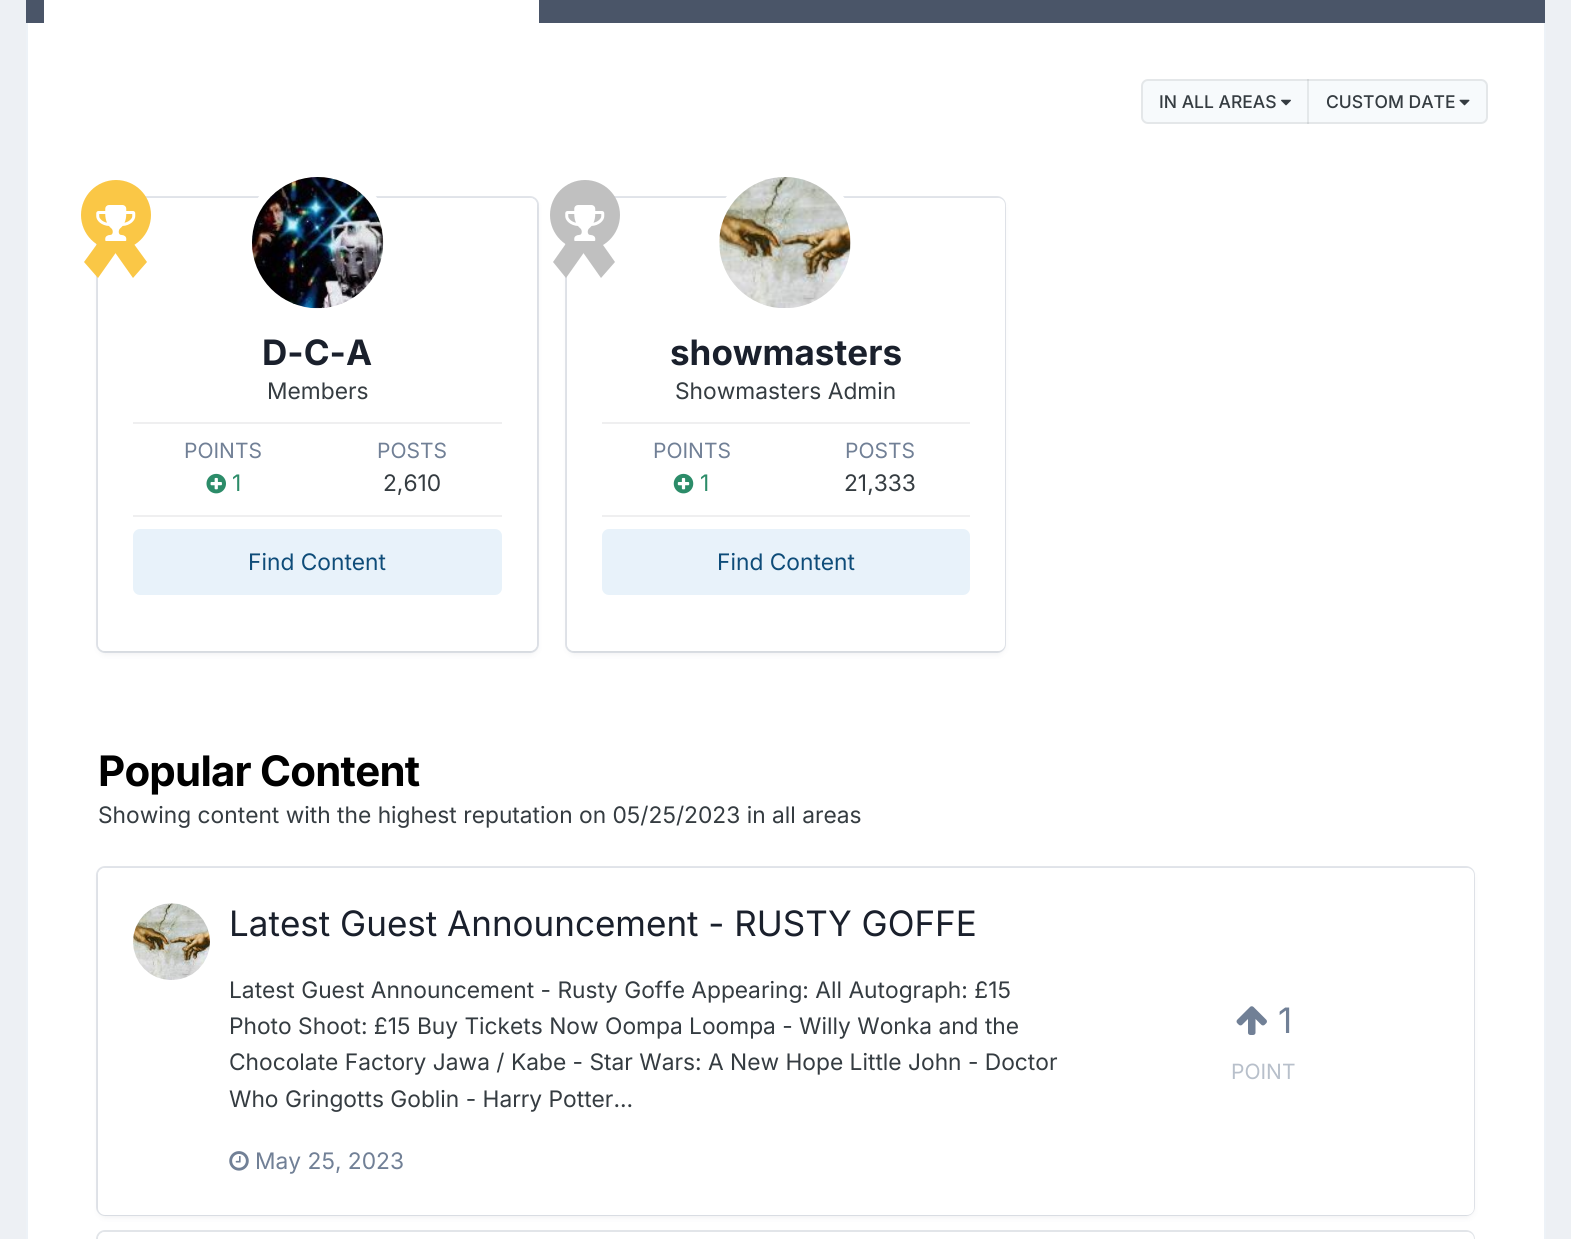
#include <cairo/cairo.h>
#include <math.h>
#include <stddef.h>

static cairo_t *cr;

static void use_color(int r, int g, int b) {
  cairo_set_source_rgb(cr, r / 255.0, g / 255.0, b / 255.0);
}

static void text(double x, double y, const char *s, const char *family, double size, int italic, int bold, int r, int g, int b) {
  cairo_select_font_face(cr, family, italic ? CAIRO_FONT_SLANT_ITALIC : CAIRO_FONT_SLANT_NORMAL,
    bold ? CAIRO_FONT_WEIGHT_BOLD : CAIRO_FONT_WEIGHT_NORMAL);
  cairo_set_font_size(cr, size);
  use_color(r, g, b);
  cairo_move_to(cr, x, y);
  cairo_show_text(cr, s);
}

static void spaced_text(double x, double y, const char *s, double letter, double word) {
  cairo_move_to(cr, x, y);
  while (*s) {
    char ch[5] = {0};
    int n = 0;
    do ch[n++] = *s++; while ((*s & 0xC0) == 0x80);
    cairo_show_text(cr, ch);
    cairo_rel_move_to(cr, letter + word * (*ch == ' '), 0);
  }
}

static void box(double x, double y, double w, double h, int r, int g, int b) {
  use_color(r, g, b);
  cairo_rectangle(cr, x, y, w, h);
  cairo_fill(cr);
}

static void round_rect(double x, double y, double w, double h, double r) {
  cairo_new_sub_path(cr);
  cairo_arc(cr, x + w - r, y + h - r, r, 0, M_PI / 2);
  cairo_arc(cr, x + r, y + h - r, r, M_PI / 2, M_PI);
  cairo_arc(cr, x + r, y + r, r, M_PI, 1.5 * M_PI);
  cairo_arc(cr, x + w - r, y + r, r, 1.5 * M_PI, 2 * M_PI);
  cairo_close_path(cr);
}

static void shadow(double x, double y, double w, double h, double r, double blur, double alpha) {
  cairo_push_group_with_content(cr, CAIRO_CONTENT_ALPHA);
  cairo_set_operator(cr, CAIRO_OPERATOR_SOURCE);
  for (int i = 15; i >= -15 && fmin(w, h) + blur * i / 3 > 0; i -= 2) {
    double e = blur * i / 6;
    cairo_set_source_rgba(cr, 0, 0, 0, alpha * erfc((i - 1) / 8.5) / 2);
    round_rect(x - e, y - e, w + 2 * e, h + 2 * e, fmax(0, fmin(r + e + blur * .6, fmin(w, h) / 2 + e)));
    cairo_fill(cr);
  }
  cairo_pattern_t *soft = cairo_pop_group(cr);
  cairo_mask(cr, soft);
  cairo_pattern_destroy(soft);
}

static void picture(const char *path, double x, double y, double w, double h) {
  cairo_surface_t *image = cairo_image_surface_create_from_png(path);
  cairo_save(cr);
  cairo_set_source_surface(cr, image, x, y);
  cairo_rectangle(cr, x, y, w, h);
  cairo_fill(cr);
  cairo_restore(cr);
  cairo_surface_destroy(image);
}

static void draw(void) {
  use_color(237, 240, 244);
  cairo_paint(cr);
  box(26, 0, 1519, 23, 74, 85, 104);
  box(44, 0, 495, 23, 255, 255, 255);
  box(28, 23, 1516, 1216, 255, 255, 255);
  box(1544, 23, 2, 1216, 237, 242, 247);
  box(26, 23, 2, 1216, 237, 242, 247);
  use_color(247, 250, 252);
  cairo_new_path(cr);
  cairo_move_to(cr, 1148, 79);
  cairo_line_to(cr, 1309, 79);
  cairo_line_to(cr, 1309, 124);
  cairo_line_to(cr, 1148, 124);
  cairo_curve_to(cr, 1144, 124, 1141, 121, 1141, 117);
  cairo_line_to(cr, 1141, 86);
  cairo_curve_to(cr, 1141, 82, 1144, 79, 1148, 79);
  cairo_close_path(cr);
  cairo_fill(cr);
  picture("img_01.png", 1281, 99, 10, 7);
  cairo_new_path(cr);
  cairo_move_to(cr, 1309, 79);
  cairo_line_to(cr, 1481, 79);
  cairo_curve_to(cr, 1485, 79, 1488, 82, 1488, 86);
  cairo_line_to(cr, 1488, 117);
  cairo_curve_to(cr, 1488, 121, 1485, 124, 1481, 124);
  cairo_line_to(cr, 1309, 124);
  cairo_close_path(cr);
  cairo_fill(cr);
  box(1307, 79, 2, 45, 228, 232, 234);
  picture("img_02.png", 1459, 99, 11, 7);
  round_rect(1142, 80, 345, 43, 6);
  cairo_set_source_rgba(cr, 0.208, 0.235, 0.255, 0.1);
  cairo_stroke(cr);
  use_color(45, 55, 72);
  shadow(100, 203, 436, 450, 5, 3.5, 0.1);
  round_rect(97, 197, 441, 455, 8);
  cairo_set_source_rgba(cr, 0.443, 0.502, 0.588, 0.2);
  cairo_stroke(cr);
  use_color(255, 255, 255);
  round_rect(98, 198, 439, 453, 7);
  cairo_fill(cr);
  use_color(250, 199, 70);
  cairo_arc(cr, 116, 215, 35, 0, 2 * M_PI);
  cairo_fill(cr);
  cairo_new_path(cr);
  cairo_move_to(cr, 116, 218);
  cairo_line_to(cr, 129, 234);
  cairo_line_to(cr, 98, 278);
  cairo_line_to(cr, 84, 262);
  cairo_close_path(cr);
  cairo_fill(cr);
  cairo_new_path(cr);
  cairo_move_to(cr, 102, 234);
  cairo_line_to(cr, 115, 218);
  cairo_line_to(cr, 147, 262);
  cairo_line_to(cr, 133, 278);
  cairo_close_path(cr);
  cairo_fill(cr);
  picture("img_03.png", 96, 205, 40, 36);
  cairo_arc(cr, 317.5, 242.5, 70, 0, 2 * M_PI);
  use_color(255, 255, 255);
  cairo_set_line_width(cr, 9);
  cairo_stroke(cr);
  cairo_arc(cr, 317.5, 242.5, 65.5, 0, 2 * M_PI);
  cairo_fill(cr);
  picture("img_04.png", 252, 177, 132, 132);
  box(133, 422, 369, 2, 239, 239, 240);
  picture("img_05.png", 206, 473, 20, 21);
  box(133, 515, 369, 2, 239, 239, 240);
  use_color(232, 242, 250);
  round_rect(133, 529, 369, 66, 7);
  cairo_fill(cr);
  use_color(45, 55, 72);
  shadow(569, 203, 434, 450, 5, 3.5, 0.1);
  round_rect(566, 197, 439, 455, 8);
  cairo_set_source_rgba(cr, 0.443, 0.502, 0.588, 0.2);
  cairo_set_line_width(cr, 2);
  cairo_stroke(cr);
  use_color(255, 255, 255);
  round_rect(567, 198, 438, 453, 7);
  cairo_fill(cr);
  use_color(192, 192, 192);
  cairo_arc(cr, 585, 215, 35, 0, 2 * M_PI);
  cairo_fill(cr);
  cairo_new_path(cr);
  cairo_move_to(cr, 584, 218);
  cairo_line_to(cr, 597, 234);
  cairo_line_to(cr, 566, 278);
  cairo_line_to(cr, 553, 262);
  cairo_close_path(cr);
  cairo_fill(cr);
  cairo_new_path(cr);
  cairo_move_to(cr, 570, 234);
  cairo_line_to(cr, 584, 218);
  cairo_line_to(cr, 615, 262);
  cairo_line_to(cr, 601, 278);
  cairo_close_path(cr);
  cairo_fill(cr);
  picture("img_06.png", 565, 205, 40, 36);
  round_rect(715.5, 172.5, 139, 140, 69.5);
  use_color(255, 255, 255);
  cairo_set_line_width(cr, 9);
  cairo_stroke(cr);
  round_rect(719, 177, 132, 131, 65.5);
  cairo_fill(cr);
  picture("img_07.png", 719, 177, 132, 131);
  box(602, 422, 368, 2, 239, 239, 240);
  picture("img_08.png", 673, 473, 21, 21);
  box(602, 515, 368, 2, 239, 239, 240);
  use_color(232, 242, 250);
  round_rect(602, 529, 368, 66, 7);
  cairo_fill(cr);
  use_color(45, 55, 72);
  shadow(100, 873, 1372, 343, 5, 3.5, 0.1);
  round_rect(97, 867, 1377, 348, 8);
  cairo_set_source_rgba(cr, 0.443, 0.502, 0.588, 0.2);
  cairo_set_line_width(cr, 2);
  cairo_stroke(cr);
  use_color(255, 255, 255);
  round_rect(98, 868, 1376, 347, 7);
  cairo_fill(cr);
  picture("img_09.png", 133, 903, 77, 77);
  picture("img_10.png", 229, 1151, 20, 20);
  picture("img_11.png", 1236, 1006, 31, 29);
  round_rect(97, 1231, 1377, 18, 8);
  use_color(226, 229, 233);
  cairo_stroke(cr);
  use_color(255, 255, 255);
  round_rect(98, 1232, 1376, 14, 7);
  cairo_fill(cr);
  text(1159, 108, "IN ALL AREAS", "Inter Medium", 17.5, 0, 0, 53, 60, 65);
  text(1326, 108, "CUSTOM DATE", "Inter Medium", 17.5, 0, 0, 53, 60, 65);
  text(262, 365, "D-C-A", "Inter", 35, 0, 1, 26, 32, 44);
  text(267, 399, "Members", "Inter", 22.75, 0, 0, 53, 60, 65);
  text(184, 458, "POINTS", "Inter", 21, 0, 0, 113, 128, 150);
  text(232, 491, "1", "Inter", 22.75, 0, 0, 44, 140, 105);
  text(377, 458, "POSTS", "Inter", 21, 0, 0, 113, 128, 150);
  text(383, 491, "2,610", "Inter", 22.75, 0, 0, 53, 60, 65);
  text(248, 570, "Find Content", "Inter", 22.75, 0, 0, 14, 76, 121);
  text(670, 365, "showmasters", "Inter", 35, 0, 1, 26, 32, 44);
  text(675, 399, "Showmasters Admin", "Inter", 22.75, 0, 0, 53, 60, 65);
  text(653, 458, "POINTS", "Inter", 21, 0, 0, 113, 128, 150);
  text(700, 491, "1", "Inter", 22.75, 0, 0, 44, 140, 105);
  text(845, 458, "POSTS", "Inter", 21, 0, 0, 113, 128, 150);
  text(844, 491, "21,333", "Inter", 22.75, 0, 0, 53, 60, 65);
  text(717, 570, "Find Content", "Inter", 22.75, 0, 0, 14, 76, 121);
  cairo_select_font_face(cr, "Inter", CAIRO_FONT_SLANT_NORMAL, CAIRO_FONT_WEIGHT_BOLD);
  cairo_set_font_size(cr, 42);
  use_color(0, 0, 0);
  spaced_text(98, 786, "Popular Content", -0.8, 0);
  text(98, 823, "Showing content with the highest reputation on 05/25/2023 in all areas", "Inter", 22.75, 0, 0, 53, 60, 65);
  text(229, 936, "Latest Guest Announcement - RUSTY GOFFE", "Inter", 35, 0, 0, 26, 32, 44);
  text(229, 998, "Latest Guest Announcement - Rusty Goffe Appearing: All Autograph: £15", "Inter", 22.75, 0, 0, 53, 60, 65);
  text(229, 1034, "Photo Shoot: £15 Buy Tickets Now Oompa Loompa - Willy Wonka and the", "Inter", 22.75, 0, 0, 53, 60, 65);
  text(229, 1070, "Chocolate Factory Jawa / Kabe - Star Wars: A New Hope Little John - Doctor", "Inter", 22.75, 0, 0, 53, 60, 65);
  text(229, 1107, "Who Gringotts Goblin - Harry Potter...", "Inter", 22.75, 0, 0, 53, 60, 65);
  text(255, 1169, "May 25, 2023", "Inter", 22.75, 0, 0, 113, 128, 150);
  text(1278, 1033, "1", "Inter", 35, 0, 0, 113, 128, 150);
  text(1231, 1079, "POINT", "Inter", 21, 0, 0, 184, 192, 203);
}

int main(void) {
  cairo_surface_t *surface = cairo_image_surface_create(CAIRO_FORMAT_RGB24, 1571, 1239);
  cr = cairo_create(surface);
  cairo_font_options_t *options = cairo_font_options_create();
  cairo_font_options_set_hint_metrics(options, CAIRO_HINT_METRICS_OFF);
  cairo_font_options_set_hint_style(options, CAIRO_HINT_STYLE_NONE);
  cairo_set_font_options(cr, options);
  cairo_set_miter_limit(cr, 4);
  draw();
  cairo_surface_write_to_png(surface, "out.png");
  cairo_font_options_destroy(options);
  cairo_destroy(cr);
  cairo_surface_destroy(surface);
  return 0;
}
